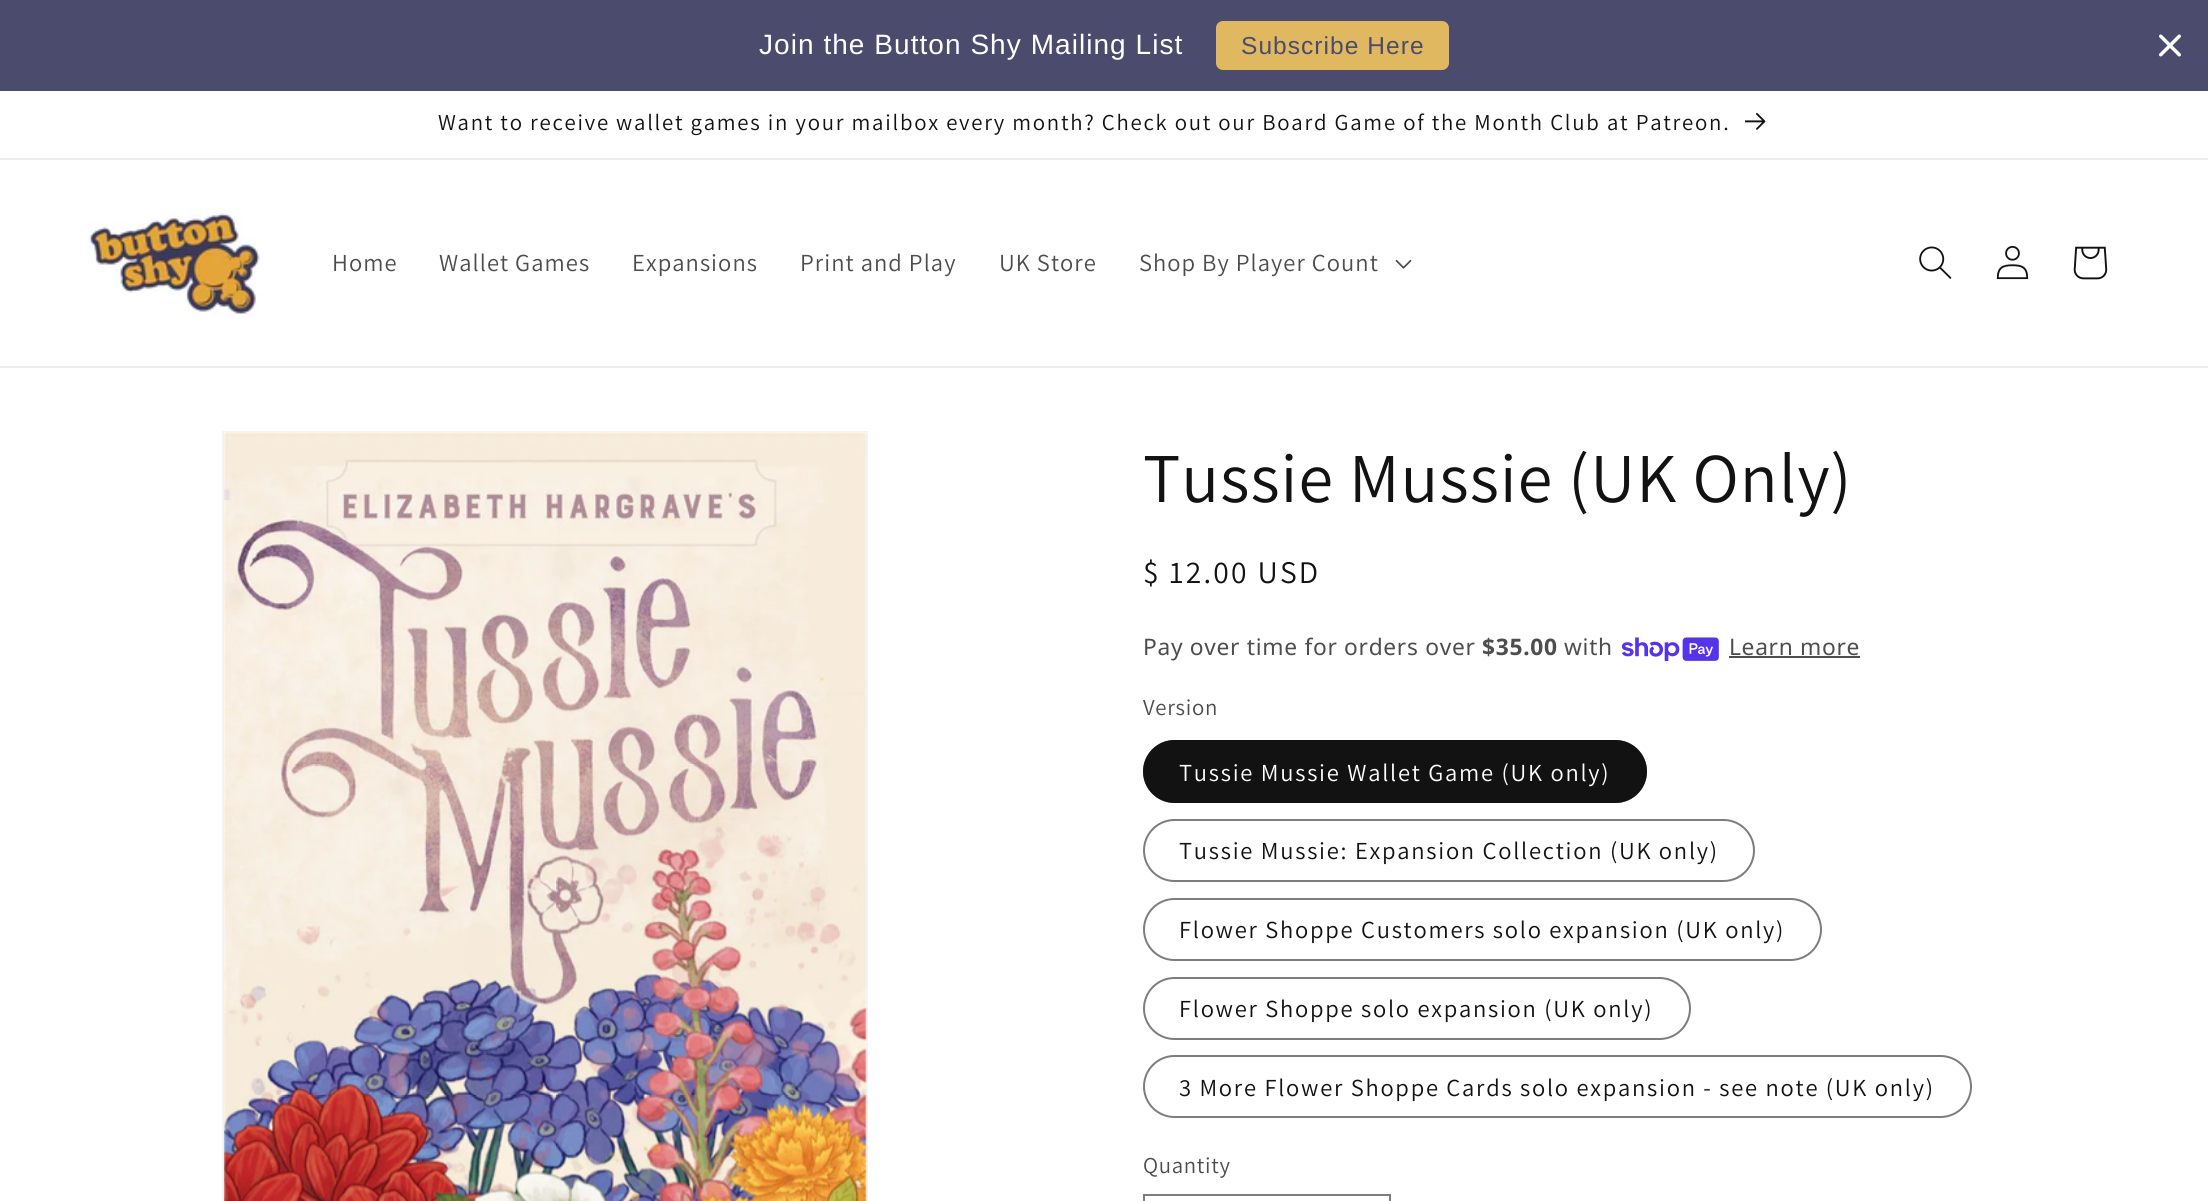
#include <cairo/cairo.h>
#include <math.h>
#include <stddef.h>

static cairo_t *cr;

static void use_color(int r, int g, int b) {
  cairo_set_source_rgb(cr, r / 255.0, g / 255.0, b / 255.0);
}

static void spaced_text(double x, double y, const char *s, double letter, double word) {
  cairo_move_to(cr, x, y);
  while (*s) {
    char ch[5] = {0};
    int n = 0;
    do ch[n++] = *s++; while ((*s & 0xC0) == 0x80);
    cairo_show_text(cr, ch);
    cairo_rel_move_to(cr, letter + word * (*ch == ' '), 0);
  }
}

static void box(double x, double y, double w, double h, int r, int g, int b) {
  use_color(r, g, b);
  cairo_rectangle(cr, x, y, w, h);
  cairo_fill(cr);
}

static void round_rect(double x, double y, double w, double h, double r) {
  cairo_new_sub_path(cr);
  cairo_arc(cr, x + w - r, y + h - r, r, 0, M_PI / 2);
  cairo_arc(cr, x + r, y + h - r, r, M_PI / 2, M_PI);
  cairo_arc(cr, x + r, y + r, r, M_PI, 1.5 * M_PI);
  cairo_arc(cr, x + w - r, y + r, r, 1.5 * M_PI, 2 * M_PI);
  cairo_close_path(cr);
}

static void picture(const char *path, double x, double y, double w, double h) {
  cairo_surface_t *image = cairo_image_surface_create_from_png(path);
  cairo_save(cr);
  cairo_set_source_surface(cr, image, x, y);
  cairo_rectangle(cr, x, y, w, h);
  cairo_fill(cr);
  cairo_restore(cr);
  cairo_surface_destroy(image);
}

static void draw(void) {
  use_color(255, 255, 255);
  cairo_paint(cr);
  box(0, 0, 2208, 91, 74, 75, 109);
  use_color(223, 184, 96);
  round_rect(1216, 21, 233, 49, 7);
  cairo_fill(cr);
  picture("img_01.png", 2159, 34, 22, 23);
  box(0, 158, 2208, 2, 236, 236, 236);
  picture("img_02.png", 1745, 113, 21, 17);
  box(0, 366, 2208, 2, 236, 236, 236);
  picture("img_03.png", 87, 208, 173, 111);
  picture("img_04.png", 1395, 259, 17, 10);
  picture("img_05.png", 1919, 246, 33, 33);
  picture("img_06.png", 1996, 245, 33, 35);
  picture("img_07.png", 2073, 246, 35, 34);
  cairo_rectangle(cr, 223, 432, 644, 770);
  use_color(243, 243, 243);
  cairo_stroke(cr);
  picture("img_08.png", 224, 432, 643, 769);
  picture("img_09.png", 1621, 637, 98, 24);
  box(1729, 656, 131, 2, 77, 77, 77);
  use_color(18, 18, 18);
  round_rect(1143, 740, 504, 63, 31.5);
  cairo_fill(cr);
  round_rect(1144, 741, 502, 61, 30.5);
  cairo_set_source_rgba(cr, 0.071, 0.071, 0.071, 0.55);
  cairo_stroke(cr);
  round_rect(1144, 820, 610, 61, 30.5);
  use_color(125, 125, 125);
  cairo_stroke(cr);
  round_rect(1144, 899, 677, 61, 30.5);
  cairo_stroke(cr);
  round_rect(1144, 978, 546, 61, 30.5);
  cairo_stroke(cr);
  round_rect(1144, 1056, 827, 61, 30.5);
  cairo_stroke(cr);
  cairo_rectangle(cr, 1144, 1195, 246, 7);
  cairo_stroke(cr);
  cairo_select_font_face(cr, "Liberation Sans", CAIRO_FONT_SLANT_NORMAL, CAIRO_FONT_WEIGHT_NORMAL);
  cairo_set_font_size(cr, 28);
  use_color(255, 255, 255);
  spaced_text(759, 54, "Join the Button Shy Mailing List", 1.05, 0);
  cairo_set_font_size(cr, 24.5);
  use_color(74, 75, 109);
  spaced_text(1241, 54, "Subscribe Here", 1.05, 0);
  cairo_select_font_face(cr, "Assistant", CAIRO_FONT_SLANT_NORMAL, CAIRO_FONT_WEIGHT_NORMAL);
  cairo_set_font_size(cr, 22.75);
  use_color(18, 18, 18);
  spaced_text(438, 130, "Want to receive wallet games in your mailbox every month? Check out our Board Game of the Month Club at Patreon.", 1.75, 0);
  cairo_set_font_size(cr, 24.5);
  use_color(77, 77, 77);
  spaced_text(332, 271, "Home", 1.05, 0);
  spaced_text(439, 271, "Wallet Games", 1.05, 0);
  spaced_text(632, 271, "Expansions", 1.05, 0);
  spaced_text(800, 271, "Print and Play", 1.05, 0);
  spaced_text(999, 271, "UK Store", 1.05, 0);
  spaced_text(1139, 271, "Shop By Player Count", 1.05, 0);
  cairo_set_font_size(cr, 70);
  use_color(18, 18, 18);
  spaced_text(1143, 502, "Tussie Mussie (UK Only)", 1.05, 0);
  cairo_set_font_size(cr, 31.5);
  spaced_text(1143, 583, "$ 12.00 USD", 2.25, 0);
  cairo_select_font_face(cr, "Noto Sans", CAIRO_FONT_SLANT_NORMAL, CAIRO_FONT_WEIGHT_NORMAL);
  cairo_set_font_size(cr, 22.75);
  use_color(77, 77, 77);
  spaced_text(1143, 655, "Pay over time for orders over", 0.7, 0);
  cairo_select_font_face(cr, "Noto Sans", CAIRO_FONT_SLANT_NORMAL, CAIRO_FONT_WEIGHT_BOLD);
  spaced_text(1482, 655, "$35.00", 0.7, 0);
  cairo_select_font_face(cr, "Noto Sans", CAIRO_FONT_SLANT_NORMAL, CAIRO_FONT_WEIGHT_NORMAL);
  spaced_text(1564, 655, "with", 0.7, 0);
  spaced_text(1729, 655, "Learn more", 0.7, 0);
  cairo_select_font_face(cr, "Assistant", CAIRO_FONT_SLANT_NORMAL, CAIRO_FONT_WEIGHT_NORMAL);
  spaced_text(1143, 715, "Version", 0.7, 0);
  cairo_set_font_size(cr, 24.5);
  use_color(255, 255, 255);
  spaced_text(1179, 781, "Tussie Mussie Wallet Game (UK only)", 1.75, 0);
  use_color(18, 18, 18);
  spaced_text(1179, 859, "Tussie Mussie: Expansion Collection (UK only)", 1.75, 0);
  spaced_text(1179, 938, "Flower Shoppe Customers solo expansion (UK only)", 1.75, 0);
  spaced_text(1179, 1017, "Flower Shoppe solo expansion (UK only)", 1.75, 0);
  spaced_text(1179, 1096, "3 More Flower Shoppe Cards solo expansion - see note (UK only)", 1.75, 0);
  cairo_set_font_size(cr, 22.75);
  use_color(77, 77, 77);
  spaced_text(1143, 1173, "Quantity", 0.7, 0);
}

int main(void) {
  cairo_surface_t *surface = cairo_image_surface_create(CAIRO_FORMAT_RGB24, 2208, 1201);
  cr = cairo_create(surface);
  cairo_font_options_t *options = cairo_font_options_create();
  cairo_font_options_set_hint_metrics(options, CAIRO_HINT_METRICS_OFF);
  cairo_font_options_set_hint_style(options, CAIRO_HINT_STYLE_NONE);
  cairo_set_font_options(cr, options);
  cairo_set_miter_limit(cr, 4);
  draw();
  cairo_surface_write_to_png(surface, "out.png");
  cairo_font_options_destroy(options);
  cairo_destroy(cr);
  cairo_surface_destroy(surface);
  return 0;
}
